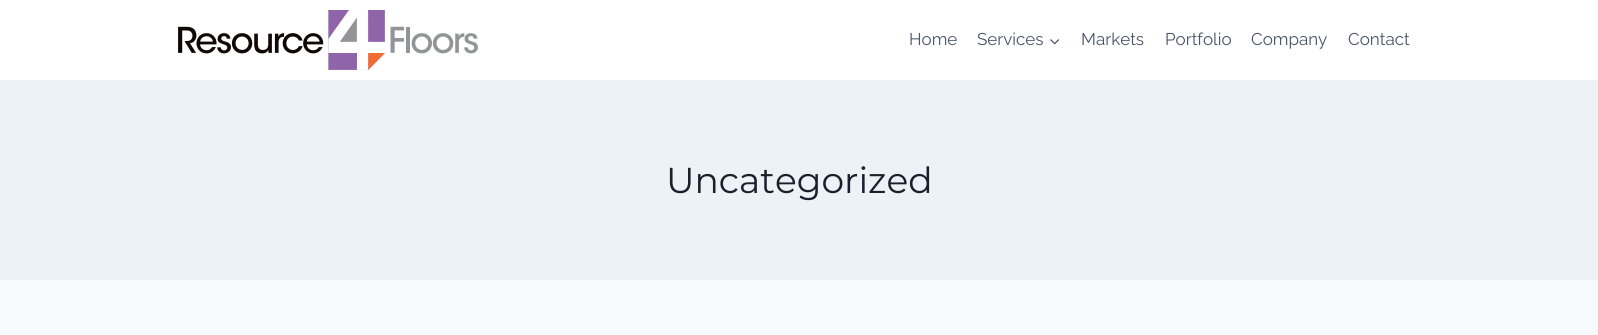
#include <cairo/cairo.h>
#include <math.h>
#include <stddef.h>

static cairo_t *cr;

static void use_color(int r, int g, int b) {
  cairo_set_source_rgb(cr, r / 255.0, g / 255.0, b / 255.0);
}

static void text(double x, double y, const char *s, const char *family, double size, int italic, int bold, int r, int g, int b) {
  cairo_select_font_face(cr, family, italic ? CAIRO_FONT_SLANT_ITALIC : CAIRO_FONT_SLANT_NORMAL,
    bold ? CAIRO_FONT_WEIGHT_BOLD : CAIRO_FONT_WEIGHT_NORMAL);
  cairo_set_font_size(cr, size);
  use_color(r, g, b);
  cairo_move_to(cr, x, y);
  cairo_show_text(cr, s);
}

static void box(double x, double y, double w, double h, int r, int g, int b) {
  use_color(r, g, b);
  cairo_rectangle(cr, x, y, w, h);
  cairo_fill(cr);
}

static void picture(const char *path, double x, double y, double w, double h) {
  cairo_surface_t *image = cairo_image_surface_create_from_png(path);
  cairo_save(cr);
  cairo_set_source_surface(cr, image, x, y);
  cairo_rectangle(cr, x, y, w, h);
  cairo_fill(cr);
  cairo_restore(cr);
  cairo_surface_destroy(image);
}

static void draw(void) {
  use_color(247, 250, 252);
  cairo_paint(cr);
  box(0, 0, 1598, 80, 255, 255, 255);
  picture("img_01.png", 178, 10, 300, 60);
  picture("img_02.png", 1050, 39, 10, 6);
  box(0, 80, 1598, 200, 237, 242, 247);
  text(909, 45, "Home", "Raleway", 17, 0, 0, 74, 85, 104);
  text(977, 45, "Services", "Raleway", 17, 0, 0, 74, 85, 104);
  text(1081, 45, "Markets", "Raleway", 17, 0, 0, 74, 85, 104);
  text(1165, 45, "Portfolio", "Raleway", 17, 0, 0, 74, 85, 104);
  text(1251, 45, "Company", "Raleway", 17, 0, 0, 74, 85, 104);
  text(1348, 45, "Contact", "Raleway", 17, 0, 0, 74, 85, 104);
  text(666, 193, "Uncategorized", "Montserrat Thin", 36, 0, 0, 26, 32, 44);
}

int main(void) {
  cairo_surface_t *surface = cairo_image_surface_create(CAIRO_FORMAT_RGB24, 1598, 335);
  cr = cairo_create(surface);
  cairo_font_options_t *options = cairo_font_options_create();
  cairo_font_options_set_hint_metrics(options, CAIRO_HINT_METRICS_OFF);
  cairo_font_options_set_hint_style(options, CAIRO_HINT_STYLE_NONE);
  cairo_set_font_options(cr, options);
  cairo_set_miter_limit(cr, 4);
  draw();
  cairo_surface_write_to_png(surface, "out.png");
  cairo_font_options_destroy(options);
  cairo_destroy(cr);
  cairo_surface_destroy(surface);
  return 0;
}
